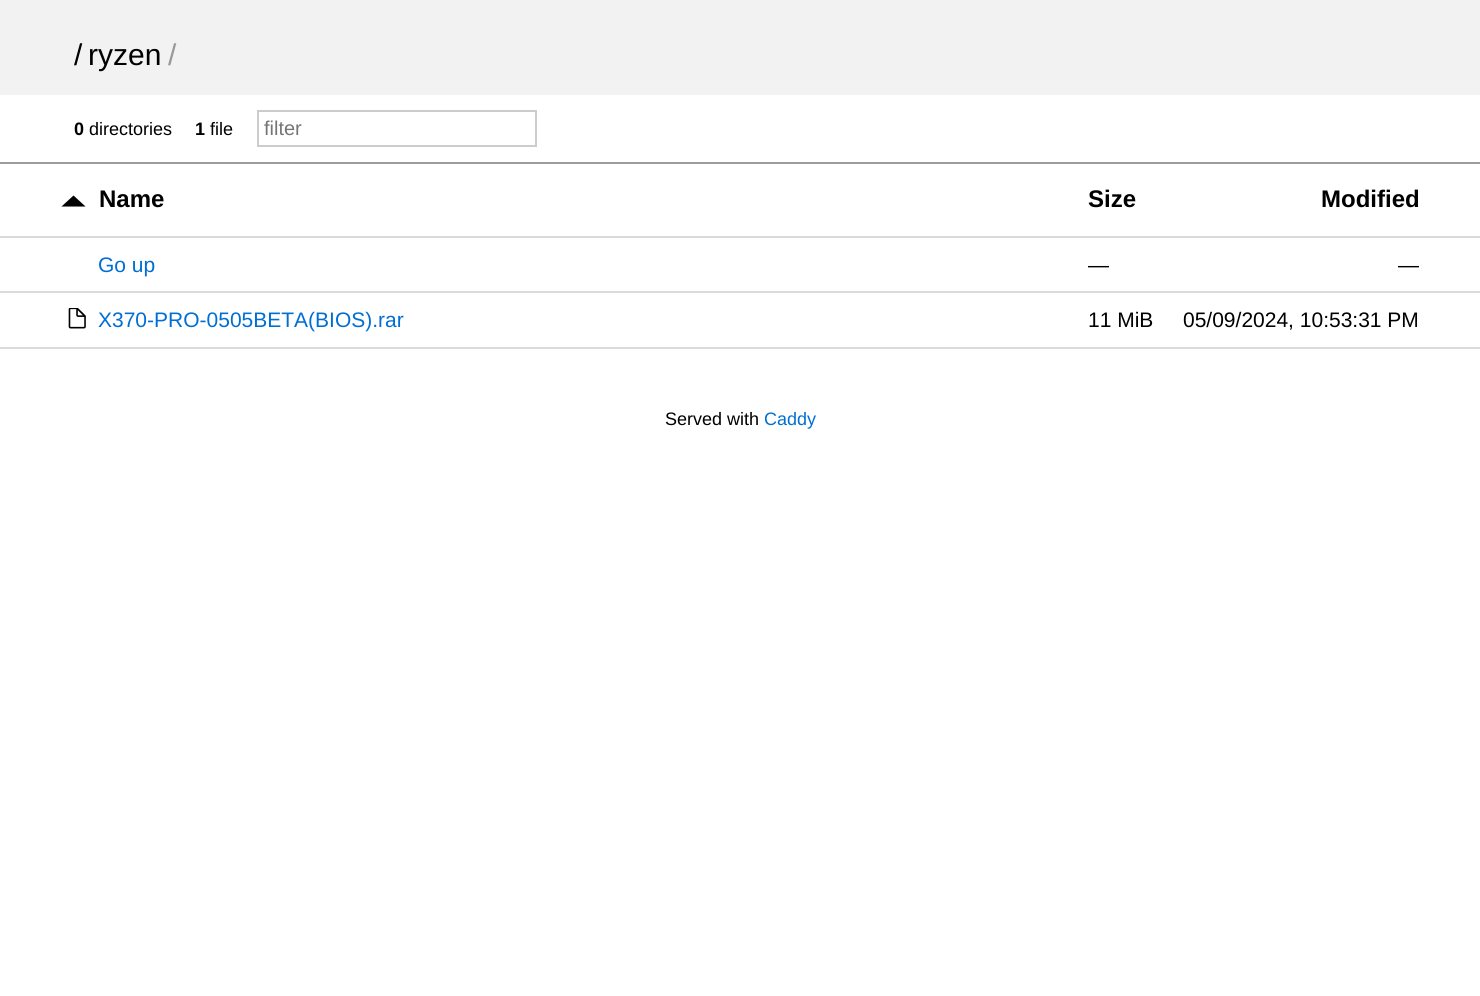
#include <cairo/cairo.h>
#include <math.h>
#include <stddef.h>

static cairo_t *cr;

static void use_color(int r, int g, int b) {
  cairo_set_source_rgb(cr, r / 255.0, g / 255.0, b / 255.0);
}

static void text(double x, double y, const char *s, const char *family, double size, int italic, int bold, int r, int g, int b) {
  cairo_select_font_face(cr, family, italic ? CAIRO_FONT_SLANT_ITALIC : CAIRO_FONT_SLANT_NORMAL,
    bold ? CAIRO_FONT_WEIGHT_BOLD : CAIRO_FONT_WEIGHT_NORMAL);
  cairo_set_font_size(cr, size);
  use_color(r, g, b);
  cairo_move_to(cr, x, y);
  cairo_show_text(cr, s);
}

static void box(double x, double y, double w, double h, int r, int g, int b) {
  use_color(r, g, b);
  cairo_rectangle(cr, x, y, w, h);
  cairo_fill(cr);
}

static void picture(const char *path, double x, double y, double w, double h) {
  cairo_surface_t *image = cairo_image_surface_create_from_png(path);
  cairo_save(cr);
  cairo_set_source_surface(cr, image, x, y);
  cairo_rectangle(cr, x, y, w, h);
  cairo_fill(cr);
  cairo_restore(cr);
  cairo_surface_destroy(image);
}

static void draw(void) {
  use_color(255, 255, 255);
  cairo_paint(cr);
  box(0, 0, 1480, 95, 242, 242, 242);
  box(0, 162, 1480, 2, 156, 156, 156);
  cairo_rectangle(cr, 258, 111, 278, 35);
  use_color(204, 204, 204);
  cairo_stroke(cr);
  box(0, 236, 1480, 2, 218, 218, 218);
  use_color(0, 0, 0);
  cairo_new_path(cr);
  cairo_move_to(cr, 85.5, 206.5);
  cairo_line_to(cr, 61.5, 206.5);
  cairo_line_to(cr, 73.5, 195.5);
  cairo_line_to(cr, 79.5, 201);
  cairo_close_path(cr);
  cairo_fill(cr);
  box(0, 291, 1480, 2, 218, 218, 218);
  box(0, 347, 1480, 2, 218, 218, 218);
  picture("img_01.png", 68, 308, 18, 21);
  text(74, 65, "/", "Liberation Sans", 30, 0, 0, 0, 0, 0);
  text(88, 65, "ryzen", "Liberation Sans", 30, 0, 0, 0, 0, 0);
  text(168, 65, "/", "Liberation Sans", 30, 0, 0, 153, 153, 153);
  text(74, 135, "0", "Liberation Sans", 18, 0, 1, 0, 0, 0);
  text(89, 135, "directories", "Liberation Sans", 18, 0, 0, 0, 0, 0);
  text(195, 135, "1", "Liberation Sans", 18, 0, 1, 0, 0, 0);
  text(210, 135, "file", "Liberation Sans", 18, 0, 0, 0, 0, 0);
  text(264, 135, "filter", "Liberation Sans", 20, 0, 0, 117, 117, 117);
  text(99, 207, "Name", "Liberation Sans", 24, 0, 1, 0, 0, 0);
  text(1088, 207, "Size", "Liberation Sans", 24, 0, 1, 0, 0, 0);
  text(1321, 207, "Modified", "Liberation Sans", 24, 0, 1, 0, 0, 0);
  text(98, 272, "Go up", "Liberation Sans", 21, 0, 0, 0, 110, 211);
  text(1088, 272, "—", "Liberation Sans", 21, 0, 0, 0, 0, 0);
  text(1398, 272, "—", "Liberation Sans", 21, 0, 0, 0, 0, 0);
  text(98, 327, "X370-PRO-0505BETA(BIOS).rar", "Liberation Sans", 21, 0, 0, 0, 110, 211);
  text(1088, 327, "11 MiB", "Liberation Sans", 21, 0, 0, 0, 0, 0);
  text(1183, 327, "05/09/2024, 10:53:31 PM", "Liberation Sans", 21, 0, 0, 0, 0, 0);
  text(665, 425, "Served with", "Liberation Sans", 18, 0, 0, 0, 0, 0);
  text(764, 425, "Caddy", "Liberation Sans", 18, 0, 0, 0, 110, 211);
}

int main(void) {
  cairo_surface_t *surface = cairo_image_surface_create(CAIRO_FORMAT_RGB24, 1480, 996);
  cr = cairo_create(surface);
  cairo_font_options_t *options = cairo_font_options_create();
  cairo_font_options_set_hint_metrics(options, CAIRO_HINT_METRICS_OFF);
  cairo_font_options_set_hint_style(options, CAIRO_HINT_STYLE_NONE);
  cairo_set_font_options(cr, options);
  cairo_set_miter_limit(cr, 4);
  draw();
  cairo_surface_write_to_png(surface, "out.png");
  cairo_font_options_destroy(options);
  cairo_destroy(cr);
  cairo_surface_destroy(surface);
  return 0;
}
